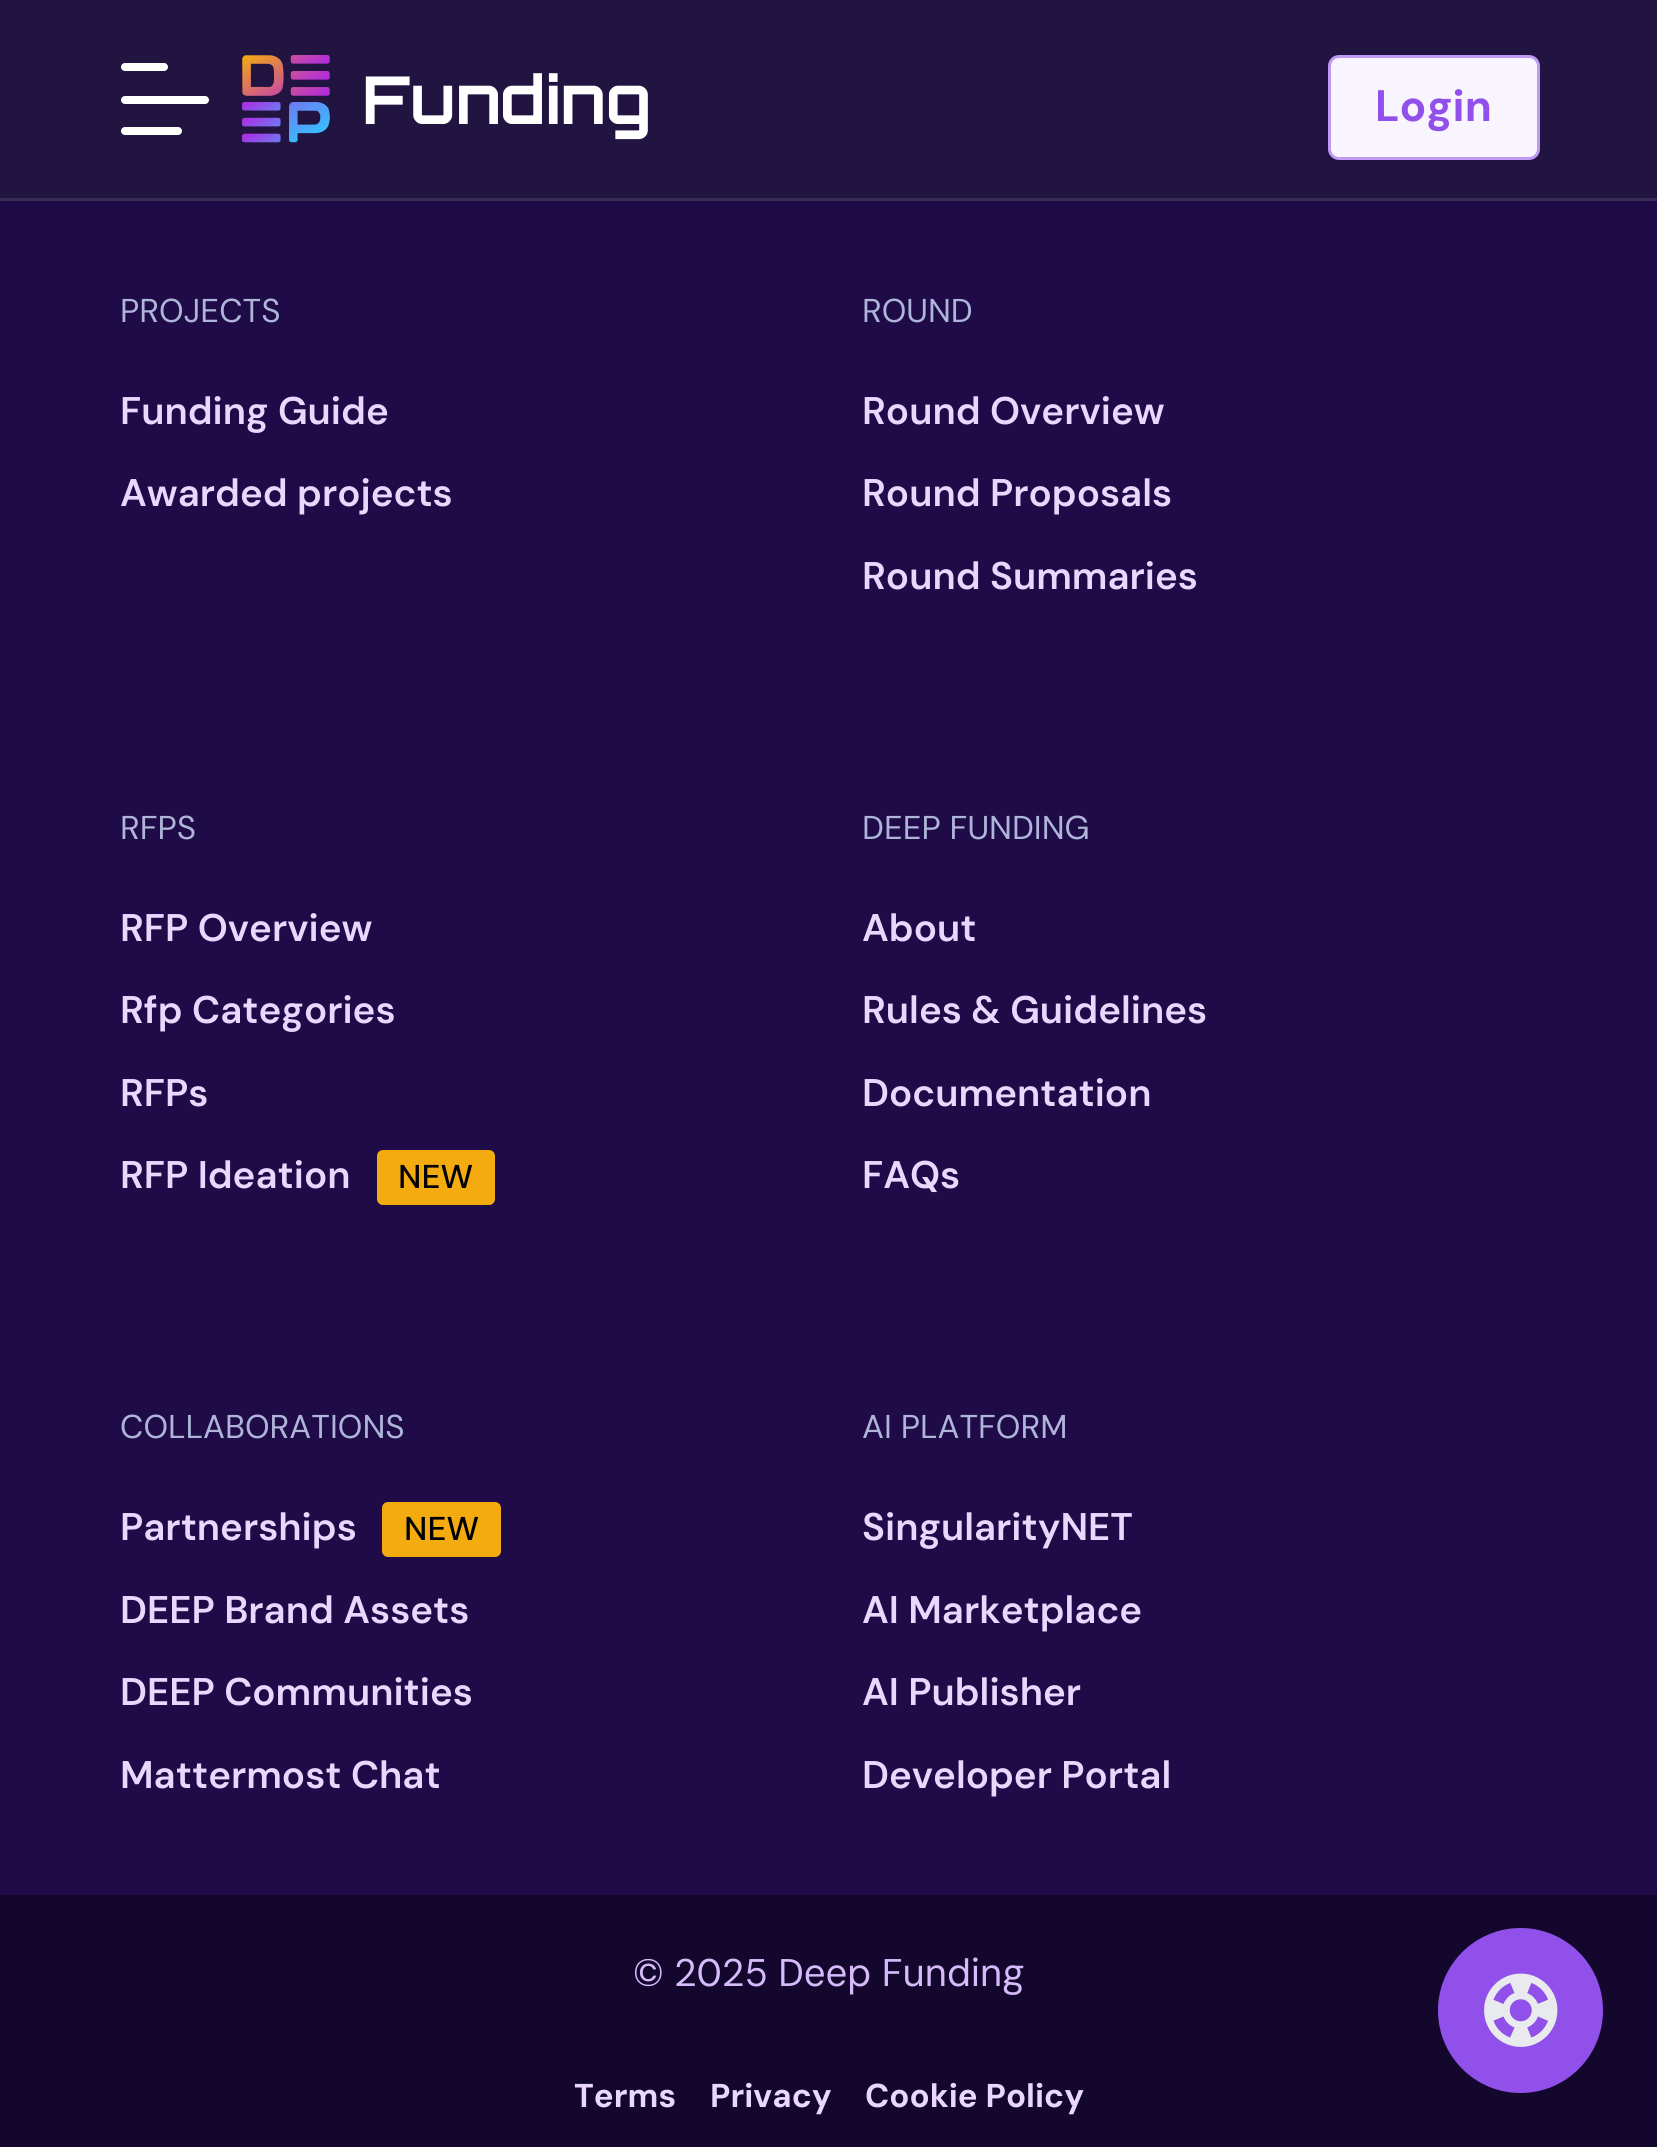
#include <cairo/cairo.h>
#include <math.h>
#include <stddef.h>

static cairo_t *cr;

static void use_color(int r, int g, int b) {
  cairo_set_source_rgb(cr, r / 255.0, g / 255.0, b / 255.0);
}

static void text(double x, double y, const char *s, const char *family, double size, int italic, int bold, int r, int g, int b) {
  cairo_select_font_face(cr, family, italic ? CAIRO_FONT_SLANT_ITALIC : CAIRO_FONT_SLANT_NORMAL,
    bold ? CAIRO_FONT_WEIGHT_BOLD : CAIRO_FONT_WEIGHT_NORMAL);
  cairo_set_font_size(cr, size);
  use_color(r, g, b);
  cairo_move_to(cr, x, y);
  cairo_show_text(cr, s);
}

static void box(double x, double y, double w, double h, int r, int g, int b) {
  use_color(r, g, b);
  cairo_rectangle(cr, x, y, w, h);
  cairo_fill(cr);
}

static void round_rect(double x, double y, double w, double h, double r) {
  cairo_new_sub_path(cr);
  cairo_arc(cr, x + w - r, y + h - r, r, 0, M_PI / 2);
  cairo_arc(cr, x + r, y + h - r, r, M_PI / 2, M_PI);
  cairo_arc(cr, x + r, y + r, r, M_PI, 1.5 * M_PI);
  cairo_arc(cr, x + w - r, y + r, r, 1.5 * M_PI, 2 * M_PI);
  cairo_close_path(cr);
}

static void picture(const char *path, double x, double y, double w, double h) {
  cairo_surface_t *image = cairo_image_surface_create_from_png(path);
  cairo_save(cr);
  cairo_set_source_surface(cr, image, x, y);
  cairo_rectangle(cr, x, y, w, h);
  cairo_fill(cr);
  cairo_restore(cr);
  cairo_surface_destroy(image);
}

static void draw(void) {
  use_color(19, 7, 45);
  cairo_paint(cr);
  box(0, 0, 1657, 198, 33, 20, 64);
  box(0, 198, 1657, 3, 55, 44, 83);
  use_color(255, 255, 255);
  round_rect(121, 63, 47, 8, 4);
  cairo_fill(cr);
  round_rect(121, 96, 88, 8, 4);
  cairo_fill(cr);
  round_rect(121, 127, 61, 8, 4);
  cairo_fill(cr);
  picture("img_01.png", 242, 55, 88, 41);
  picture("img_02.png", 242, 102, 88, 41);
  use_color(249, 245, 255);
  round_rect(1329.5, 56.5, 209, 102, 9.5);
  cairo_fill_preserve(cr);
  use_color(191, 154, 242);
  cairo_set_line_width(cr, 3);
  cairo_stroke(cr);
  box(0, 201, 1657, 1694, 30, 11, 71);
  use_color(243, 171, 16);
  round_rect(377, 1150, 118, 55, 6);
  cairo_fill(cr);
  round_rect(382, 1502, 119, 55, 6);
  cairo_fill(cr);
  use_color(144, 80, 233);
  cairo_arc(cr, 1520.5, 2010.5, 82.5, 0, 2 * M_PI);
  cairo_fill(cr);
  picture("img_03.png", 1484, 1973, 74, 74);
  text(362, 124, "Funding", "Orbitron", 66, 0, 1, 255, 255, 255);
  text(1375, 121, "Login", "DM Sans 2", 44, 0, 1, 144, 80, 233);
  text(120, 322, "PROJECTS", "DM Sans", 33, 0, 0, 175, 181, 217);
  text(120, 424, "Funding Guide", "DM Sans SemiBold", 38.5, 0, 0, 233, 215, 254);
  text(120, 506, "Awarded projects", "DM Sans SemiBold", 38.5, 0, 0, 233, 215, 254);
  text(862, 322, "ROUND", "DM Sans", 33, 0, 0, 175, 181, 217);
  text(862, 424, "Round Overview", "DM Sans SemiBold", 38.5, 0, 0, 233, 215, 254);
  text(862, 506, "Round Proposals", "DM Sans SemiBold", 38.5, 0, 0, 233, 215, 254);
  text(862, 589, "Round Summaries", "DM Sans SemiBold", 38.5, 0, 0, 233, 215, 254);
  text(120, 839, "RFPS", "DM Sans", 33, 0, 0, 175, 181, 217);
  text(120, 941, "RFP Overview", "DM Sans SemiBold", 38.5, 0, 0, 233, 215, 254);
  text(120, 1023, "Rfp Categories", "DM Sans SemiBold", 38.5, 0, 0, 233, 215, 254);
  text(120, 1106, "RFPs", "DM Sans SemiBold", 38.5, 0, 0, 233, 215, 254);
  text(120, 1188, "RFP Ideation", "DM Sans SemiBold", 38.5, 0, 0, 233, 215, 254);
  text(398, 1188, "NEW", "DM Sans Medium", 33, 0, 0, 1, 0, 4);
  text(862, 839, "DEEP FUNDING", "DM Sans", 33, 0, 0, 175, 181, 217);
  text(862, 941, "About", "DM Sans SemiBold", 38.5, 0, 0, 233, 215, 254);
  text(862, 1023, "Rules & Guidelines", "DM Sans SemiBold", 38.5, 0, 0, 233, 215, 254);
  text(862, 1106, "Documentation", "DM Sans SemiBold", 38.5, 0, 0, 233, 215, 254);
  text(862, 1188, "FAQs", "DM Sans SemiBold", 38.5, 0, 0, 233, 215, 254);
  text(120, 1438, "COLLABORATIONS", "DM Sans", 33, 0, 0, 175, 181, 217);
  text(120, 1540, "Partnerships", "DM Sans SemiBold", 38.5, 0, 0, 233, 215, 254);
  text(404, 1540, "NEW", "DM Sans Medium", 33, 0, 0, 1, 0, 4);
  text(120, 1623, "DEEP Brand Assets", "DM Sans SemiBold", 38.5, 0, 0, 233, 215, 254);
  text(120, 1705, "DEEP Communities", "DM Sans SemiBold", 38.5, 0, 0, 233, 215, 254);
  text(120, 1788, "Mattermost Chat", "DM Sans SemiBold", 38.5, 0, 0, 233, 215, 254);
  text(862, 1438, "AI PLATFORM", "DM Sans", 33, 0, 0, 175, 181, 217);
  text(862, 1540, "SingularityNET", "DM Sans SemiBold", 38.5, 0, 0, 233, 215, 254);
  text(862, 1623, "AI Marketplace", "DM Sans SemiBold", 38.5, 0, 0, 233, 215, 254);
  text(862, 1705, "AI Publisher", "DM Sans SemiBold", 38.5, 0, 0, 233, 215, 254);
  text(862, 1788, "Developer Portal", "DM Sans SemiBold", 38.5, 0, 0, 233, 215, 254);
  text(633, 1986, "© 2025 Deep Funding", "DM Sans", 38.5, 0, 0, 214, 187, 251);
  text(574, 2107, "Terms", "DM Sans", 33, 0, 1, 233, 215, 254);
  text(710, 2107, "Privacy", "DM Sans", 33, 0, 1, 233, 215, 254);
  text(865, 2107, "Cookie Policy", "DM Sans", 33, 0, 1, 233, 215, 254);
}

int main(void) {
  cairo_surface_t *surface = cairo_image_surface_create(CAIRO_FORMAT_RGB24, 1657, 2147);
  cr = cairo_create(surface);
  cairo_font_options_t *options = cairo_font_options_create();
  cairo_font_options_set_hint_metrics(options, CAIRO_HINT_METRICS_OFF);
  cairo_font_options_set_hint_style(options, CAIRO_HINT_STYLE_NONE);
  cairo_set_font_options(cr, options);
  cairo_set_miter_limit(cr, 4);
  draw();
  cairo_surface_write_to_png(surface, "out.png");
  cairo_font_options_destroy(options);
  cairo_destroy(cr);
  cairo_surface_destroy(surface);
  return 0;
}
